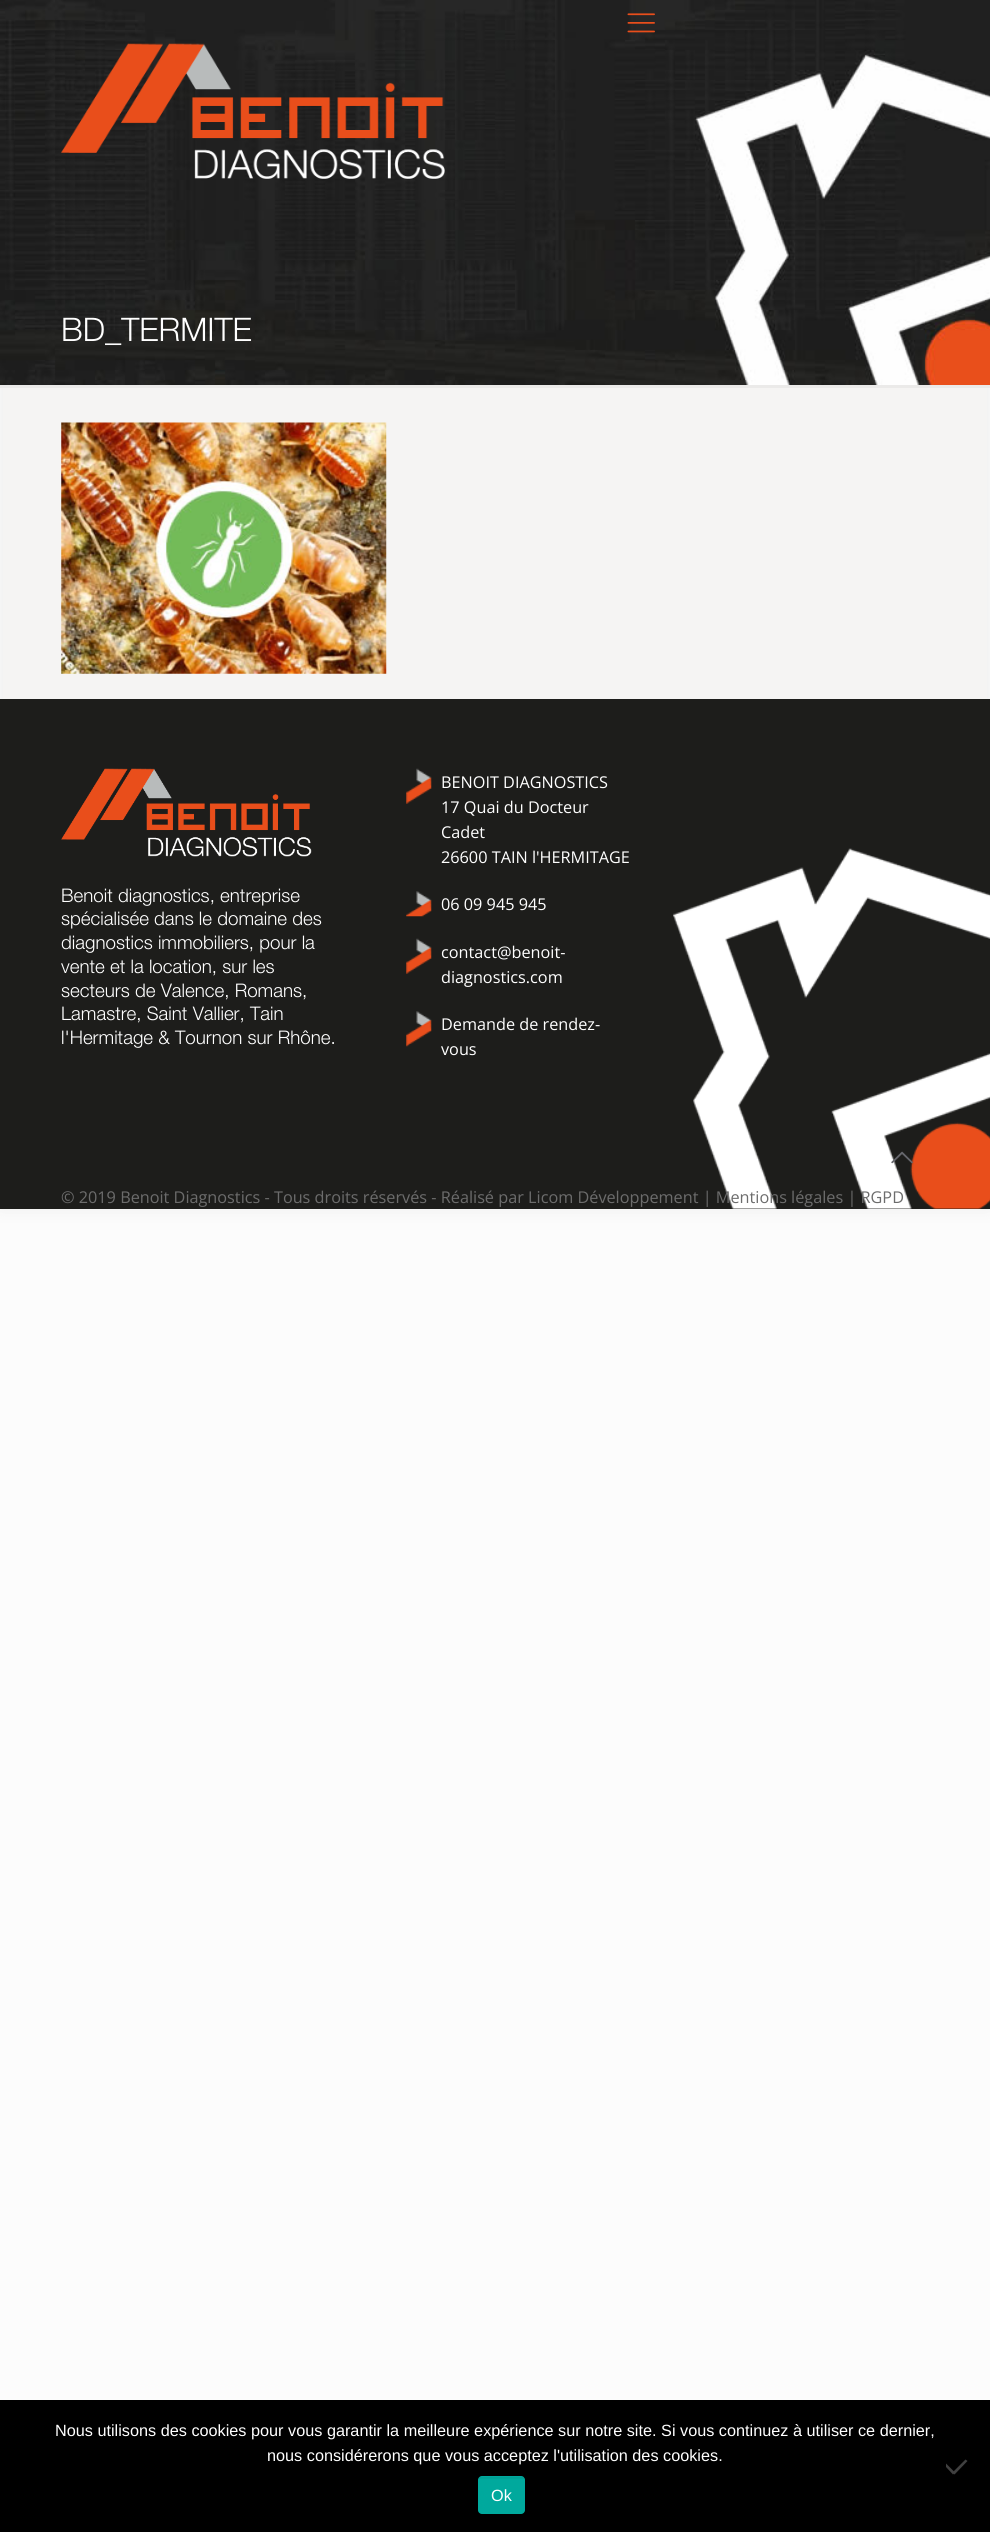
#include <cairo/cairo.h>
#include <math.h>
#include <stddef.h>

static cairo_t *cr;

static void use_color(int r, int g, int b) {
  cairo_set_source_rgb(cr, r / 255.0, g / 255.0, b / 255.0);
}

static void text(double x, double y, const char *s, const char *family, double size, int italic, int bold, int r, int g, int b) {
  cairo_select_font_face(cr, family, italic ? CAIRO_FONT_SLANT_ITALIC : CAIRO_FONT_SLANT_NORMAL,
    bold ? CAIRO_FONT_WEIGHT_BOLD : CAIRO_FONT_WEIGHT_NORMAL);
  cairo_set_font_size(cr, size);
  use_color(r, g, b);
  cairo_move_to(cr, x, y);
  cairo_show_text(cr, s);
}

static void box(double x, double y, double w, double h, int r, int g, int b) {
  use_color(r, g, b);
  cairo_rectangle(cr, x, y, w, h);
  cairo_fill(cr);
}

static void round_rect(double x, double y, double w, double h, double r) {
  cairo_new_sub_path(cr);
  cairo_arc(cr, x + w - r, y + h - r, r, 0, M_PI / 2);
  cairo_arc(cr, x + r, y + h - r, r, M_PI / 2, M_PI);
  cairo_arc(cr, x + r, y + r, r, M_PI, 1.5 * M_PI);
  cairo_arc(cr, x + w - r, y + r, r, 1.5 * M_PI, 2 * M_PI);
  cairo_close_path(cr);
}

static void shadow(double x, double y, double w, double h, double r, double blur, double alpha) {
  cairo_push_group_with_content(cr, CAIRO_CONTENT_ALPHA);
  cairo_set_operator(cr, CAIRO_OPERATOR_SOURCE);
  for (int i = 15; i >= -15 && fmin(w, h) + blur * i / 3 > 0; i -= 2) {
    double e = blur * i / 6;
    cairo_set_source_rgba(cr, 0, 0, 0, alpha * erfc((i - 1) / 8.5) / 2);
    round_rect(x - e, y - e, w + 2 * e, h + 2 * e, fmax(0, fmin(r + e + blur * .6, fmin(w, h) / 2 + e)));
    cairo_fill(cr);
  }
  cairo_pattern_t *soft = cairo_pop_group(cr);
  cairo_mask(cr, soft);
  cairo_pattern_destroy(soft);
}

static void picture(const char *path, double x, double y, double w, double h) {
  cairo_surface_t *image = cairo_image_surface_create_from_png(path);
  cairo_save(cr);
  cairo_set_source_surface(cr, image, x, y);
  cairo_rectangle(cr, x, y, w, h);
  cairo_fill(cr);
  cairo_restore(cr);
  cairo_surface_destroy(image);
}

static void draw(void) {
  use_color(252, 252, 252);
  cairo_paint(cr);
  use_color(0, 0, 0);
  shadow(0, 0, 990, 1209, 0, 9.5, 0.06);
  box(3, 388, 984, 311, 245, 244, 243);
  picture("img_01.png", 0, 0, 990, 385);
  picture("img_02.png", 627, 13, 28, 20);
  picture("img_03.png", 61, 43, 384, 136);
  box(0, 385, 990, 3, 235, 234, 233);
  picture("img_04.png", 61, 422, 326, 252);
  box(0, 699, 990, 510, 29, 29, 27);
  picture("img_05.png", 673, 848, 317, 361);
  picture("img_06.png", 61, 768, 251, 89);
  picture("img_07.png", 406, 768, 26, 36);
  picture("img_08.png", 406, 891, 26, 26);
  picture("img_07.png", 406, 938, 26, 36);
  picture("img_09.png", 406, 1011, 26, 36);
  picture("img_10.png", 891, 1151, 22, 13);
  box(0, 2400, 990, 132, 0, 0, 0);
  use_color(64, 64, 64);
  cairo_new_path(cr);
  cairo_move_to(cr, 965.5, 2459.5);
  cairo_line_to(cr, 967.5, 2461);
  cairo_line_to(cr, 954.5, 2474.5);
  cairo_line_to(cr, 952.5, 2472.5);
  cairo_close_path(cr);
  cairo_fill(cr);
  cairo_new_path(cr);
  cairo_move_to(cr, 946, 2467);
  cairo_line_to(cr, 946, 2463.5);
  cairo_line_to(cr, 955, 2472.5);
  cairo_line_to(cr, 953, 2474.5);
  cairo_close_path(cr);
  cairo_fill(cr);
  use_color(0, 169, 157);
  round_rect(478, 2476, 47, 38, 4);
  cairo_fill(cr);
  picture("img_11.png", 478, 2477, 46, 2);
  text(61, 341, "BD_TERMITE", "Helvetica Neue Light", 32.5, 0, 0, 255, 255, 255);
  text(61, 902, "Benoit diagnostics, entreprise", "Helvetica Neue Light", 18.75, 0, 0, 255, 255, 255);
  text(61, 925, "spécialisée dans le domaine des", "Helvetica Neue Light", 18.75, 0, 0, 255, 255, 255);
  text(61, 949, "diagnostics immobiliers, pour la", "Helvetica Neue Light", 18.75, 0, 0, 255, 255, 255);
  text(61, 973, "vente et la location, sur les", "Helvetica Neue Light", 18.75, 0, 0, 255, 255, 255);
  text(61, 997, "secteurs de Valence, Romans,", "Helvetica Neue Light", 18.75, 0, 0, 255, 255, 255);
  text(61, 1020, "Lamastre, Saint Vallier, Tain", "Helvetica Neue Light", 18.75, 0, 0, 255, 255, 255);
  text(61, 1044, "l'Hermitage & Tournon sur Rhône.", "Helvetica Neue Light", 18.75, 0, 0, 255, 255, 255);
  text(441, 788, "BENOIT DIAGNOSTICS", "Open Sans", 16.25, 0, 0, 255, 255, 255);
  text(441, 813, "17 Quai du Docteur", "Open Sans", 16.25, 0, 0, 255, 255, 255);
  text(441, 838, "Cadet", "Open Sans", 16.25, 0, 0, 255, 255, 255);
  text(441, 863, "26600 TAIN l'HERMITAGE", "Open Sans", 16.25, 0, 0, 255, 255, 255);
  text(441, 910, "06 09 945 945", "Open Sans", 16.25, 0, 0, 255, 255, 255);
  text(441, 958, "contact@benoit-", "Open Sans", 16.25, 0, 0, 255, 255, 255);
  text(441, 983, "diagnostics.com", "Open Sans", 16.25, 0, 0, 255, 255, 255);
  text(441, 1030, "Demande de rendez-", "Open Sans", 16.25, 0, 0, 255, 255, 255);
  text(441, 1055, "vous", "Open Sans", 16.25, 0, 0, 255, 255, 255);
  text(61, 1203, "© 2019 Benoit Diagnostics - Tous droits réservés - Réalisé par Licom Développement | Mentions légales | RGPD", "Open Sans", 16.25, 0, 0, 108, 108, 108);
  text(55, 2436, "Nous utilisons des cookies pour vous garantir la meilleure expérience sur notre site. Si vous continuez à utiliser ce dernier,", "Liberation Sans", 16.25, 0, 0, 255, 255, 255);
  text(267, 2461, "nous considérerons que vous acceptez l'utilisation des cookies.", "Liberation Sans", 16.25, 0, 0, 255, 255, 255);
  text(491, 2501, "Ok", "Liberation Sans", 16.25, 0, 0, 255, 255, 255);
}

int main(void) {
  cairo_surface_t *surface = cairo_image_surface_create(CAIRO_FORMAT_RGB24, 990, 2532);
  cr = cairo_create(surface);
  cairo_font_options_t *options = cairo_font_options_create();
  cairo_font_options_set_hint_metrics(options, CAIRO_HINT_METRICS_OFF);
  cairo_font_options_set_hint_style(options, CAIRO_HINT_STYLE_NONE);
  cairo_set_font_options(cr, options);
  cairo_set_miter_limit(cr, 4);
  draw();
  cairo_surface_write_to_png(surface, "out.png");
  cairo_font_options_destroy(options);
  cairo_destroy(cr);
  cairo_surface_destroy(surface);
  return 0;
}
